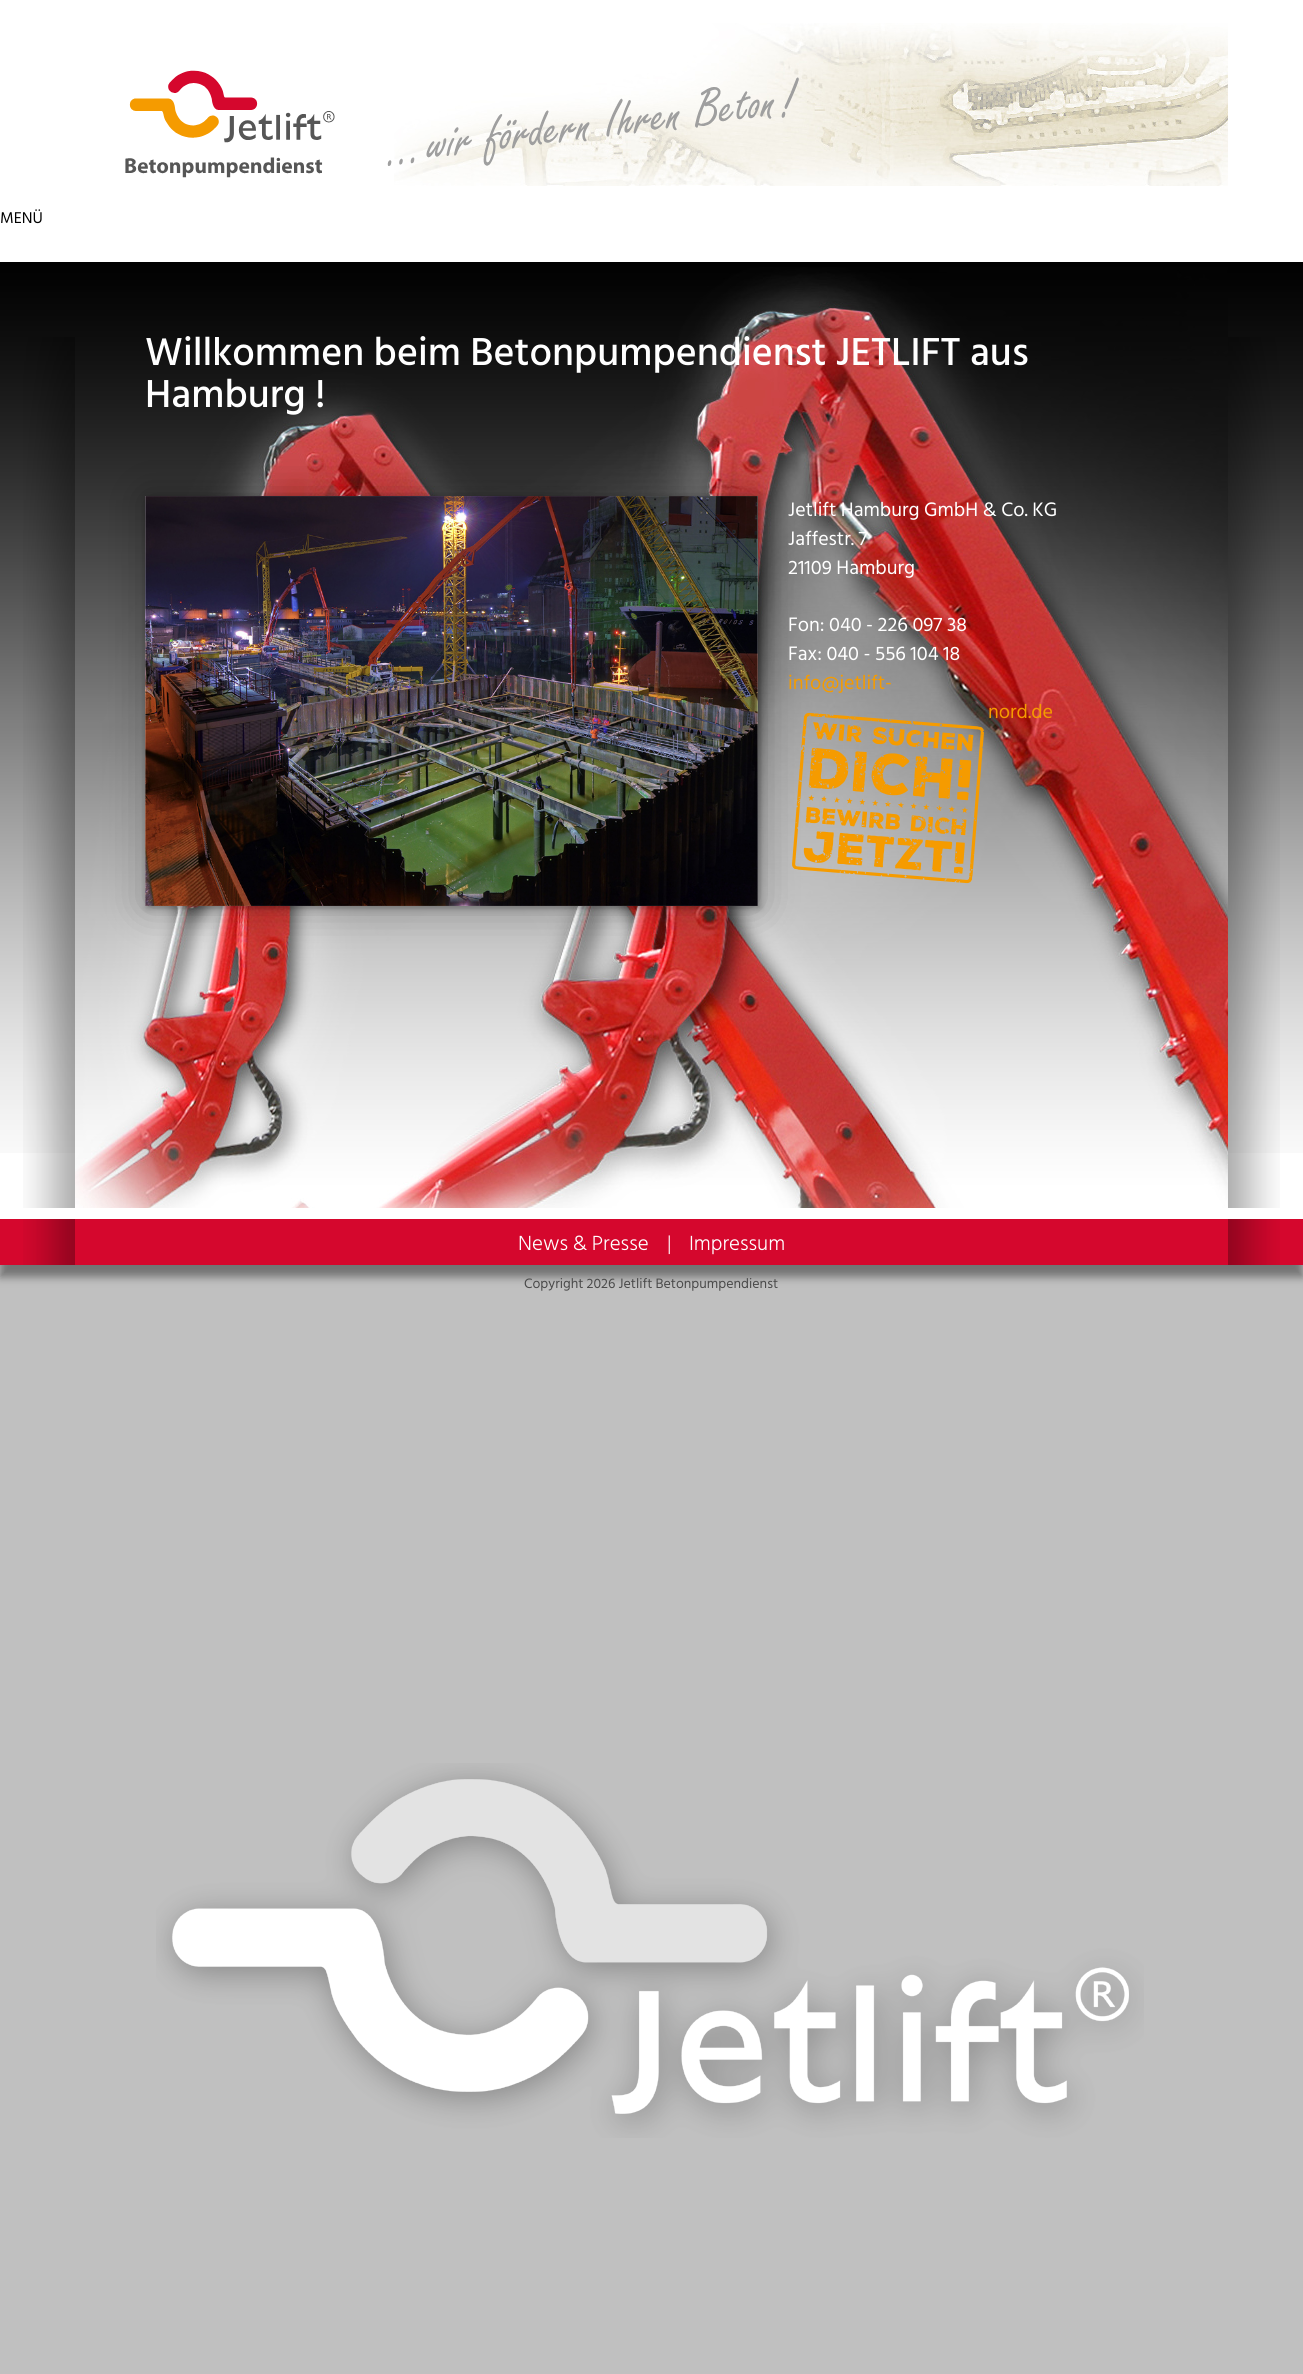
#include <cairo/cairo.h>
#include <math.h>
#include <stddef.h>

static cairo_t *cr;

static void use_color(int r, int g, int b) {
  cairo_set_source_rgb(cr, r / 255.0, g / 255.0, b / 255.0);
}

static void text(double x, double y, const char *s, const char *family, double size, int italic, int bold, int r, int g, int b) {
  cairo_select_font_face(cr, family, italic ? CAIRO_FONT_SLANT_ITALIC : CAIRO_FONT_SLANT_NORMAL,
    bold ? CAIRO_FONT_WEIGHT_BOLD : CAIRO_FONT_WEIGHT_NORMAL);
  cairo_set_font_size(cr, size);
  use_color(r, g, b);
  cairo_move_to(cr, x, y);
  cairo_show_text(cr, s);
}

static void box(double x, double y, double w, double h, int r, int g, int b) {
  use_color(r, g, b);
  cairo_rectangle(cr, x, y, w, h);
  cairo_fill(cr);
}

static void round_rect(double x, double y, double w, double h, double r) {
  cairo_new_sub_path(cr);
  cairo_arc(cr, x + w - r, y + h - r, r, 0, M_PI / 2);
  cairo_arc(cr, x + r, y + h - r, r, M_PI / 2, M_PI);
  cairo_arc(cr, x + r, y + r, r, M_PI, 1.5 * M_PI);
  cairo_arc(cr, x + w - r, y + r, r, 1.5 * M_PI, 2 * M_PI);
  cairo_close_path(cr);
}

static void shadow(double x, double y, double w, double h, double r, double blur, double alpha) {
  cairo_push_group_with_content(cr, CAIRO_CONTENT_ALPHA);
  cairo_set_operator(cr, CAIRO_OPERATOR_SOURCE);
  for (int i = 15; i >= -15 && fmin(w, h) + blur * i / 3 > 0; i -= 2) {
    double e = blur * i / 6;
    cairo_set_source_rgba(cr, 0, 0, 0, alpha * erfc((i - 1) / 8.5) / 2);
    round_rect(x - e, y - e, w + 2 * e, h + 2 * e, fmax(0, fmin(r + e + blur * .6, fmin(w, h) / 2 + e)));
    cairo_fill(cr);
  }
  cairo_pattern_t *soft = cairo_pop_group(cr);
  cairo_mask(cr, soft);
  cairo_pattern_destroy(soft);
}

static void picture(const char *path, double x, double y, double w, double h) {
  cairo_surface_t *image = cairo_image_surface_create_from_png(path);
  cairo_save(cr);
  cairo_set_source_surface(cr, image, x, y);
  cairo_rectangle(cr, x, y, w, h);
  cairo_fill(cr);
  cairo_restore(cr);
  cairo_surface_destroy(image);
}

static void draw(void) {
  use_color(192, 192, 192);
  cairo_paint(cr);
  picture("img_01.png", 156, 1763, 988, 375);
  box(0, 0, 1303, 1219, 255, 255, 255);
  picture("img_02.png", 0, 262, 1303, 891);
  picture("img_03.png", 125, 70, 210, 108);
  picture("img_04.png", 394, 23, 834, 163);
  picture("img_05.png", 387, 77, 412, 89);
  picture("img_06.png", 23, 337, 52, 871);
  picture("img_07.png", 75, 267, 1153, 941);
  use_color(0, 0, 0);
  shadow(145, 496, 613, 410, 0, 20, 0.3);
  shadow(147, 498, 613, 410, 0, 3.5, 0.3);
  picture("img_08.png", 145, 496, 613, 410);
  picture("img_09.png", 792, 712, 192, 172);
  picture("img_10.png", 1228, 337, 52, 871);
  shadow(0, 1231, 1303, 46, 0, 4.5, 0.4);
  box(0, 1219, 1303, 46, 213, 7, 45);
  picture("img_11.png", 23, 1219, 52, 46);
  picture("img_12.png", 1228, 1219, 52, 46);
  text(0, 223, "MENÜ", "Hind Siliguri", 16, 0, 0, 0, 0, 0);
  text(145, 365, "Willkommen beim Betonpumpendienst JETLIFT aus", "Hind Siliguri Medium", 40, 0, 0, 255, 255, 255);
  text(145, 407, "Hamburg !", "Hind Siliguri Medium", 40, 0, 0, 255, 255, 255);
  text(788, 516, "Jetlift Hamburg GmbH & Co. KG", "Hind Siliguri", 20, 0, 0, 255, 255, 255);
  text(788, 545, "Jaffestr. 7", "Hind Siliguri", 20, 0, 0, 255, 255, 255);
  text(788, 574, "21109 Hamburg", "Hind Siliguri", 20, 0, 0, 255, 255, 255);
  text(788, 631, "Fon: 040 - 226 097 38", "Hind Siliguri", 20, 0, 0, 255, 255, 255);
  text(788, 660, "Fax: 040 - 556 104 18", "Hind Siliguri", 20, 0, 0, 255, 255, 255);
  text(788, 689, "info@jetlift-", "Hind Siliguri", 20, 0, 0, 245, 155, 0);
  text(988, 718, "nord.de", "Hind Siliguri", 20, 0, 0, 245, 155, 0);
  text(518, 1250, "News & Presse", "Hind Siliguri Light", 21, 0, 0, 255, 255, 255);
  text(667, 1250, "|", "Hind Siliguri Light", 21, 0, 0, 255, 255, 255);
  text(689, 1250, "Impressum", "Hind Siliguri Light", 21, 0, 0, 255, 255, 255);
  text(524, 1288, "Copyright 2026 Jetlift Betonpumpendienst", "Hind Siliguri", 14, 0, 0, 74, 74, 74);
}

int main(void) {
  cairo_surface_t *surface = cairo_image_surface_create(CAIRO_FORMAT_RGB24, 1303, 2374);
  cr = cairo_create(surface);
  cairo_font_options_t *options = cairo_font_options_create();
  cairo_font_options_set_hint_metrics(options, CAIRO_HINT_METRICS_OFF);
  cairo_font_options_set_hint_style(options, CAIRO_HINT_STYLE_NONE);
  cairo_set_font_options(cr, options);
  cairo_set_miter_limit(cr, 4);
  draw();
  cairo_surface_write_to_png(surface, "out.png");
  cairo_font_options_destroy(options);
  cairo_destroy(cr);
  cairo_surface_destroy(surface);
  return 0;
}
